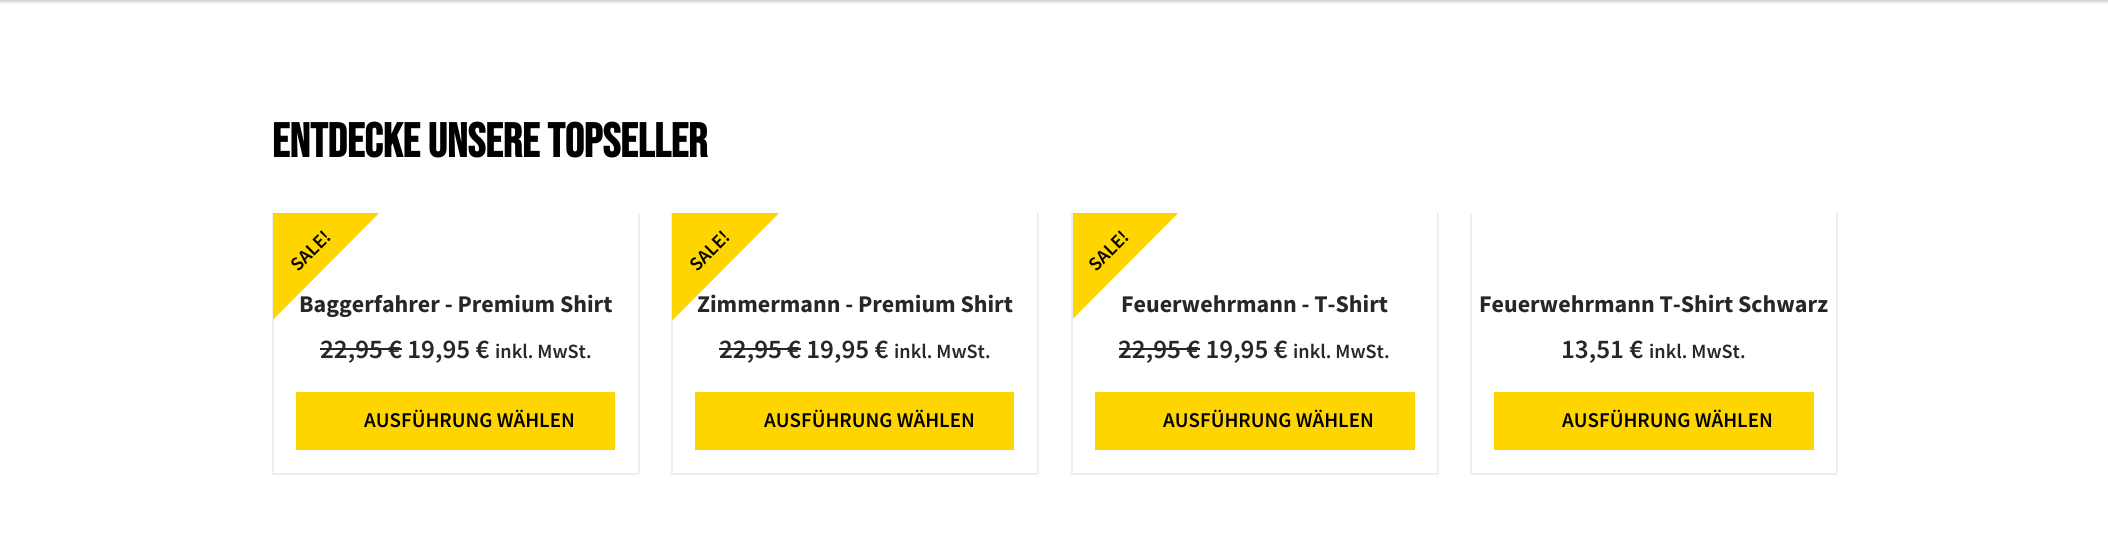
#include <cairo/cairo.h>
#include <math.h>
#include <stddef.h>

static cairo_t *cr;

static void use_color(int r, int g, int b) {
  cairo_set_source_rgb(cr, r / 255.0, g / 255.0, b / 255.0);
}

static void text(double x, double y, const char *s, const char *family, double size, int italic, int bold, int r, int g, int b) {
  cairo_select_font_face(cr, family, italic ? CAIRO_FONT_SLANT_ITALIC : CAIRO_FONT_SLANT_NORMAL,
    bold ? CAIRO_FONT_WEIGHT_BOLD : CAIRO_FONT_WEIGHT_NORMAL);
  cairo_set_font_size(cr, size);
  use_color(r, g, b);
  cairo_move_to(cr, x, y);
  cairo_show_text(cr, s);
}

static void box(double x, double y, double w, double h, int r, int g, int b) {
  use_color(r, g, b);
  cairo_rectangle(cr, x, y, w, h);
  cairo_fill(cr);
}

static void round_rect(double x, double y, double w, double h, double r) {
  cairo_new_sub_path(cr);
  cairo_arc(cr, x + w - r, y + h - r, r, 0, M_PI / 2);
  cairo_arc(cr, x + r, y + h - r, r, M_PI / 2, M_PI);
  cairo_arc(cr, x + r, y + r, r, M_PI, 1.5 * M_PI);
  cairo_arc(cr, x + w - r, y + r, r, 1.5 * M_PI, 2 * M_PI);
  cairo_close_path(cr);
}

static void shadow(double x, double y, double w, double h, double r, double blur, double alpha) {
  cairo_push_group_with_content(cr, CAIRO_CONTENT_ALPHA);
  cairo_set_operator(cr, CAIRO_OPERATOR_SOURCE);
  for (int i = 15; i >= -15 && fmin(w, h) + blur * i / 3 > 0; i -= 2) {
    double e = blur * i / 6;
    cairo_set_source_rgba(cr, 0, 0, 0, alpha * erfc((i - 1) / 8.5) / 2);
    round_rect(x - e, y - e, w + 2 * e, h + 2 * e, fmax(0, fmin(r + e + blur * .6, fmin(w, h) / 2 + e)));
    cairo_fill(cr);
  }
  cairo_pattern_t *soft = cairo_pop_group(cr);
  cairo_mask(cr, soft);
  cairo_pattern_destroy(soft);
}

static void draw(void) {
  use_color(255, 255, 255);
  cairo_paint(cr);
  use_color(0, 0, 0);
  shadow(0, -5, 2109, 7, 0, 1.5, 0.2);
  box(638, 213, 2, 261, 238, 238, 238);
  box(272, 473, 367, 2, 238, 238, 238);
  box(272, 213, 2, 261, 238, 238, 238);
  box(320, 348, 69, 2, 39, 39, 39);
  box(389, 348, 13, 2, 39, 39, 39);
  box(296, 392, 319, 58, 255, 213, 0);
  box(1037, 213, 2, 261, 238, 238, 238);
  box(671, 473, 367, 2, 238, 238, 238);
  box(671, 213, 2, 261, 238, 238, 238);
  box(719, 348, 69, 2, 39, 39, 39);
  box(788, 348, 13, 2, 39, 39, 39);
  box(695, 392, 319, 58, 255, 213, 0);
  box(1437, 213, 2, 261, 238, 238, 238);
  box(1071, 473, 368, 2, 238, 238, 238);
  box(1071, 213, 2, 261, 238, 238, 238);
  box(1119, 348, 81, 2, 39, 39, 39);
  box(1095, 392, 320, 58, 255, 213, 0);
  box(1836, 213, 2, 261, 238, 238, 238);
  box(1470, 473, 368, 2, 238, 238, 238);
  box(1470, 213, 2, 261, 238, 238, 238);
  box(1494, 392, 320, 58, 255, 213, 0);
  text(272, 157, "entdecke unsere Topseller", "Bebas Neue", 48, 0, 1, 0, 0, 0);
  text(299, 312, "Baggerfahrer - Premium Shirt", "Source Sans Pro", 24, 0, 1, 39, 39, 39);
  cairo_save(cr);
  cairo_rectangle(cr, 273, 213, 365, 260);
  cairo_clip(cr);
  use_color(255, 213, 0);
  cairo_new_path(cr);
  cairo_move_to(cr, 114, 266);
  cairo_line_to(cr, 326, 54);
  cairo_line_to(cr, 432, 160);
  cairo_line_to(cr, 220, 373);
  cairo_close_path(cr);
  cairo_fill(cr);
  cairo_restore(cr);
  cairo_save(cr);
  cairo_translate(cr, 298, 272);
  cairo_rotate(cr, -45 * M_PI / 180);
  text(0, 0, "SALE!", "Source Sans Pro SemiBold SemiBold", 19.5, 0, 0, 0, 0, 0);
  cairo_restore(cr);
  text(320, 358, "22,95", "Source Sans Pro SemiBold SemiBold", 27, 0, 0, 39, 39, 39);
  text(388, 358, "€ 19,95 €", "Source Sans Pro SemiBold SemiBold", 27, 0, 0, 39, 39, 39);
  text(495, 358, "inkl. MwSt.", "Source Sans Pro SemiBold SemiBold", 20.25, 0, 0, 39, 39, 39);
  text(364, 427, "AUSFÜHRUNG WÄHLEN", "Source Sans Pro SemiBold SemiBold", 21, 0, 0, 0, 0, 0);
  text(697, 312, "Zimmermann - Premium Shirt", "Source Sans Pro", 24, 0, 1, 39, 39, 39);
  cairo_save(cr);
  cairo_rectangle(cr, 672, 213, 365, 260);
  cairo_clip(cr);
  use_color(255, 213, 0);
  cairo_new_path(cr);
  cairo_move_to(cr, 514, 266);
  cairo_line_to(cr, 726, 54);
  cairo_line_to(cr, 832, 160);
  cairo_line_to(cr, 620, 373);
  cairo_close_path(cr);
  cairo_fill(cr);
  cairo_restore(cr);
  cairo_save(cr);
  cairo_translate(cr, 697, 272);
  cairo_rotate(cr, -45 * M_PI / 180);
  text(0, 0, "SALE!", "Source Sans Pro SemiBold SemiBold", 19.5, 0, 0, 0, 0, 0);
  cairo_restore(cr);
  text(719, 358, "22,95", "Source Sans Pro SemiBold SemiBold", 27, 0, 0, 39, 39, 39);
  text(787, 358, "€ 19,95 €", "Source Sans Pro SemiBold SemiBold", 27, 0, 0, 39, 39, 39);
  text(894, 358, "inkl. MwSt.", "Source Sans Pro SemiBold SemiBold", 20.25, 0, 0, 39, 39, 39);
  text(764, 427, "AUSFÜHRUNG WÄHLEN", "Source Sans Pro SemiBold SemiBold", 21, 0, 0, 0, 0, 0);
  text(1121, 312, "Feuerwehrmann - T-Shirt", "Source Sans Pro", 24, 0, 1, 39, 39, 39);
  cairo_save(cr);
  cairo_rectangle(cr, 1073, 213, 364, 260);
  cairo_clip(cr);
  use_color(255, 213, 0);
  cairo_new_path(cr);
  cairo_move_to(cr, 913, 266);
  cairo_line_to(cr, 1125, 54);
  cairo_line_to(cr, 1231, 160);
  cairo_line_to(cr, 1019, 373);
  cairo_close_path(cr);
  cairo_fill(cr);
  cairo_restore(cr);
  cairo_save(cr);
  cairo_translate(cr, 1096, 272);
  cairo_rotate(cr, -45 * M_PI / 180);
  text(0, 0, "SALE!", "Source Sans Pro SemiBold SemiBold", 19.5, 0, 0, 0, 0, 0);
  cairo_restore(cr);
  text(1118, 358, "22,95 € 19,95 €", "Source Sans Pro SemiBold SemiBold", 27, 0, 0, 39, 39, 39);
  text(1293, 358, "inkl. MwSt.", "Source Sans Pro SemiBold SemiBold", 20.25, 0, 0, 39, 39, 39);
  text(1163, 427, "AUSFÜHRUNG WÄHLEN", "Source Sans Pro SemiBold SemiBold", 21, 0, 0, 0, 0, 0);
  text(1479, 312, "Feuerwehrmann T-Shirt Schwarz", "Source Sans Pro", 24, 0, 1, 39, 39, 39);
  text(1561, 358, "13,51 €", "Source Sans Pro SemiBold SemiBold", 27, 0, 0, 39, 39, 39);
  text(1649, 358, "inkl. MwSt.", "Source Sans Pro SemiBold SemiBold", 20.25, 0, 0, 39, 39, 39);
  text(1562, 427, "AUSFÜHRUNG WÄHLEN", "Source Sans Pro SemiBold SemiBold", 21, 0, 0, 0, 0, 0);
}

int main(void) {
  cairo_surface_t *surface = cairo_image_surface_create(CAIRO_FORMAT_RGB24, 2108, 548);
  cr = cairo_create(surface);
  cairo_font_options_t *options = cairo_font_options_create();
  cairo_font_options_set_hint_metrics(options, CAIRO_HINT_METRICS_OFF);
  cairo_font_options_set_hint_style(options, CAIRO_HINT_STYLE_NONE);
  cairo_set_font_options(cr, options);
  cairo_set_miter_limit(cr, 4);
  draw();
  cairo_surface_write_to_png(surface, "out.png");
  cairo_font_options_destroy(options);
  cairo_destroy(cr);
  cairo_surface_destroy(surface);
  return 0;
}
